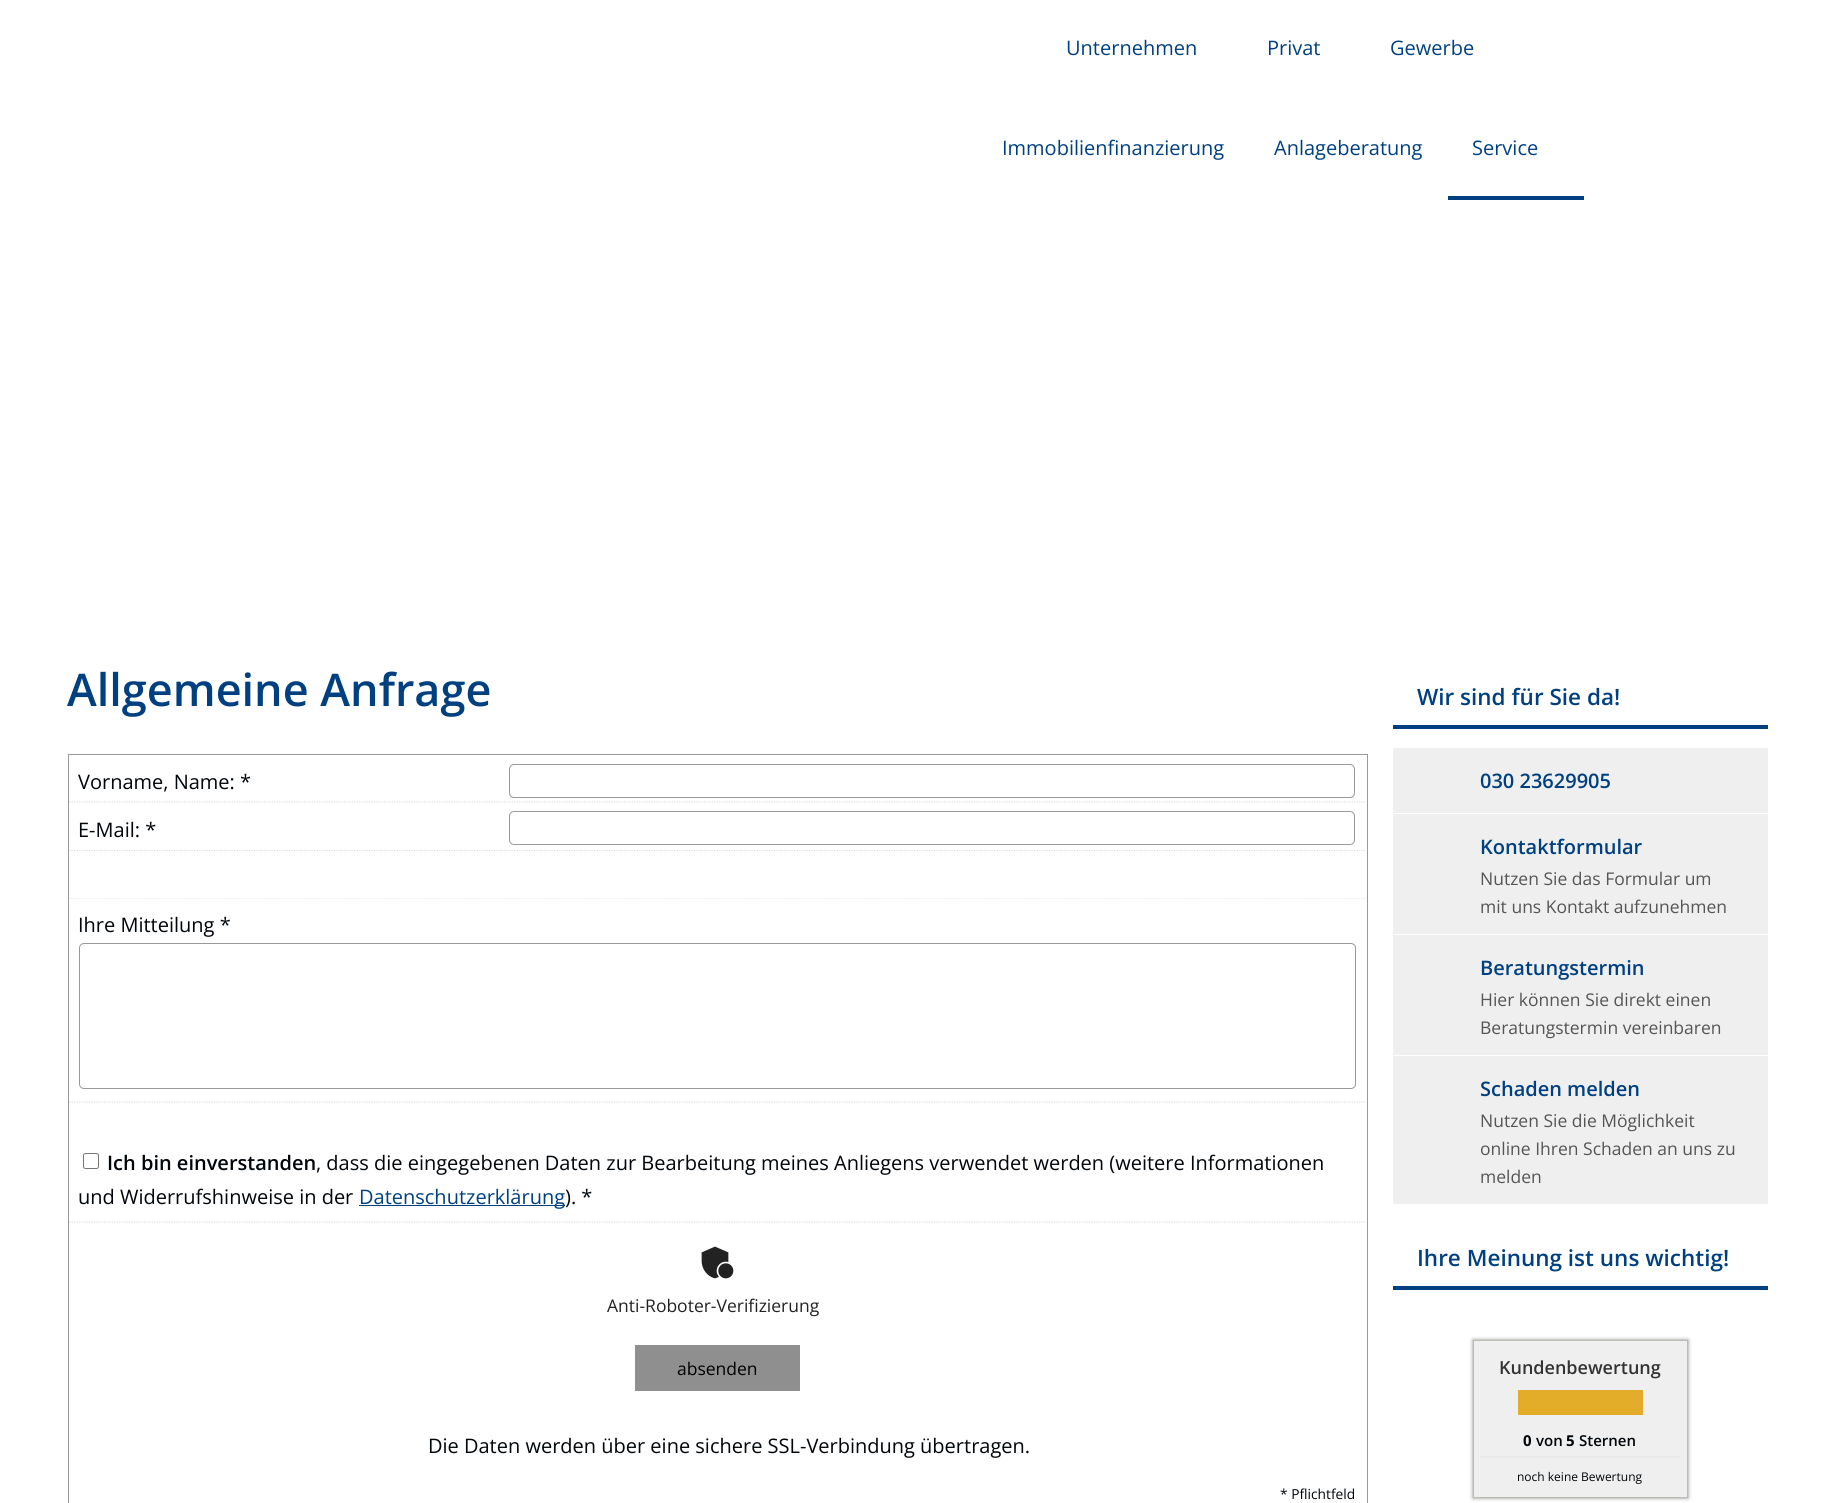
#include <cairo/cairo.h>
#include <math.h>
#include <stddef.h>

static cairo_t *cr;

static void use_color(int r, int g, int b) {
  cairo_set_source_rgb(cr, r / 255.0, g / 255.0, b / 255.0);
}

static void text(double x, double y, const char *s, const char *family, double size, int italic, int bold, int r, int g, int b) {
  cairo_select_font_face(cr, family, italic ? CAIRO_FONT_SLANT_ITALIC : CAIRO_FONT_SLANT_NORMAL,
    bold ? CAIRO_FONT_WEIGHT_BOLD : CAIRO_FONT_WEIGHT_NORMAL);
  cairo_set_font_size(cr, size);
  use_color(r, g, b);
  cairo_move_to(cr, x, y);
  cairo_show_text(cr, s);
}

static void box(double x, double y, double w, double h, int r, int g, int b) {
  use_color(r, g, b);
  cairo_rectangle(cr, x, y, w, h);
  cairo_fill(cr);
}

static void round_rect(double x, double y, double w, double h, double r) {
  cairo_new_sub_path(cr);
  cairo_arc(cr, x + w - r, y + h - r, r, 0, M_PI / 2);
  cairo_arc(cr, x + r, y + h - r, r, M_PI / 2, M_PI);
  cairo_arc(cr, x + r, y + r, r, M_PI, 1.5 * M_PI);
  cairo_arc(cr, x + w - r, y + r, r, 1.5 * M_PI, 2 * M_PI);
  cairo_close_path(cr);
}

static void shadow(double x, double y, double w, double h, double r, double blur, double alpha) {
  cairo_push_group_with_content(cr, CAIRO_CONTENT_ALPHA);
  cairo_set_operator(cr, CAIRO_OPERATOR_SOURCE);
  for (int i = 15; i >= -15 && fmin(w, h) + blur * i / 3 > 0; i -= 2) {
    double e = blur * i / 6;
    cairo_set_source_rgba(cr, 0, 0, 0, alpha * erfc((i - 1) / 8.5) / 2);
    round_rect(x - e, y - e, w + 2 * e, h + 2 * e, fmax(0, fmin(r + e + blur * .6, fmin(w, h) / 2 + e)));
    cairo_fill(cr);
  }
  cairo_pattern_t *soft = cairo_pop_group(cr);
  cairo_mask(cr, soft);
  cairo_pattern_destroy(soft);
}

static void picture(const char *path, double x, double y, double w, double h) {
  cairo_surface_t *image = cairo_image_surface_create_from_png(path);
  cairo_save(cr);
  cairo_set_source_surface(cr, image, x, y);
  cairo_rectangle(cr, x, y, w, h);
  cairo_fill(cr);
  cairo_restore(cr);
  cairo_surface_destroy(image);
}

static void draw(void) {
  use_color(255, 255, 255);
  cairo_paint(cr);
  box(1448, 196, 136, 4, 0, 64, 128);
  cairo_rectangle(cr, 68.5, 754.5, 1299, 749);
  use_color(153, 153, 153);
  cairo_set_line_width(cr, 1);
  cairo_stroke(cr);
  cairo_new_path(cr);
  cairo_move_to(cr, 69, 802);
  cairo_line_to(cr, 1366, 802);
  use_color(221, 221, 221);
  cairo_set_line_width(cr, 1.2);
  cairo_set_dash(cr, (double[]){1.25, 1.25}, 2, 0);
  cairo_stroke(cr);
  round_rect(509.5, 764.5, 845, 33, 4.5);
  use_color(153, 153, 153);
  cairo_set_line_width(cr, 1);
  cairo_set_dash(cr, NULL, 0, 0);
  cairo_stroke(cr);
  cairo_new_path(cr);
  cairo_move_to(cr, 69, 850.5);
  cairo_line_to(cr, 1366, 850.5);
  use_color(221, 221, 221);
  cairo_set_line_width(cr, 1.2);
  cairo_set_dash(cr, (double[]){1.25, 1.25}, 2, 0);
  cairo_stroke(cr);
  round_rect(509.5, 811.5, 845, 33, 4.5);
  use_color(153, 153, 153);
  cairo_set_line_width(cr, 1);
  cairo_set_dash(cr, NULL, 0, 0);
  cairo_stroke(cr);
  cairo_new_path(cr);
  cairo_move_to(cr, 69, 898);
  cairo_line_to(cr, 1366, 898);
  use_color(221, 221, 221);
  cairo_set_line_width(cr, 1.2);
  cairo_set_dash(cr, (double[]){1.25, 1.25}, 2, 0);
  cairo_stroke(cr);
  box(69, 851, 1297, 47, 255, 255, 255);
  cairo_new_path(cr);
  cairo_move_to(cr, 69, 1102);
  cairo_line_to(cr, 1366, 1102);
  use_color(221, 221, 221);
  cairo_stroke(cr);
  round_rect(79.5, 943.5, 1276, 145, 4.5);
  use_color(153, 153, 153);
  cairo_set_line_width(cr, 1);
  cairo_set_dash(cr, NULL, 0, 0);
  cairo_stroke(cr);
  cairo_new_path(cr);
  cairo_move_to(cr, 69, 1222);
  cairo_line_to(cr, 1366, 1222);
  use_color(221, 221, 221);
  cairo_set_line_width(cr, 1.2);
  cairo_set_dash(cr, (double[]){1.25, 1.25}, 2, 0);
  cairo_stroke(cr);
  round_rect(83.5, 1153.5, 15, 15, 2);
  use_color(118, 118, 118);
  cairo_set_line_width(cr, 1);
  cairo_set_dash(cr, NULL, 0, 0);
  cairo_stroke(cr);
  box(359, 1205, 206, 1, 0, 64, 128);
  picture("img_01.png", 701, 1246, 33, 33);
  box(635, 1345, 165, 46, 143, 143, 143);
  box(1393, 725, 375, 4, 0, 64, 128);
  box(1393, 748, 375, 65, 239, 239, 239);
  box(1393, 814, 375, 120, 239, 239, 239);
  box(1393, 935, 375, 120, 239, 239, 239);
  box(1393, 1056, 375, 148, 239, 239, 239);
  box(1393, 1286, 375, 4, 0, 64, 128);
  use_color(136, 136, 136);
  shadow(1473, 1340, 215, 158, 0, 2, 1);
  use_color(239, 239, 239);
  cairo_rectangle(cr, 1473.5, 1340.5, 214, 157);
  cairo_fill_preserve(cr);
  use_color(189, 188, 178);
  cairo_stroke(cr);
  box(1518, 1390, 125, 25, 227, 173, 41);
  cairo_new_path(cr);
  cairo_move_to(cr, 1480, 1457);
  cairo_line_to(cr, 1680, 1457);
  use_color(221, 221, 221);
  cairo_set_line_width(cr, 1.2);
  cairo_set_dash(cr, (double[]){1.25, 1.25}, 2, 0);
  cairo_stroke(cr);
  text(1066, 55, "Unternehmen", "Open Sans", 20, 0, 0, 0, 64, 128);
  text(1267, 55, "Privat", "Open Sans", 20, 0, 0, 0, 64, 128);
  text(1390, 55, "Gewerbe", "Open Sans", 20, 0, 0, 0, 64, 128);
  text(1002, 155, "Immobilienfinanzierung", "Open Sans", 20, 0, 0, 0, 64, 128);
  text(1274, 155, "Anlageberatung", "Open Sans", 20, 0, 0, 0, 64, 128);
  text(1472, 155, "Service", "Open Sans", 20, 0, 0, 0, 64, 128);
  text(67, 706, "Allgemeine Anfrage", "Open Sans SemiBold", 45, 0, 0, 0, 64, 128);
  text(78, 789, "Vorname, Name: *", "Open Sans", 20, 0, 0, 0, 5, 10);
  text(78, 837, "E-Mail: *", "Open Sans", 20, 0, 0, 0, 5, 10);
  text(78, 932, "Ihre Mitteilung *", "Open Sans", 20, 0, 0, 0, 5, 10);
  text(107, 1170, "Ich bin einverstanden", "Open Sans SemiBold", 20, 0, 0, 0, 5, 10);
  text(316, 1170, ", dass die eingegebenen Daten zur Bearbeitung meines Anliegens verwendet werden (weitere Informationen", "Open Sans", 20, 0, 0, 0, 5, 10);
  text(78, 1204, "und Widerrufshinweise in der", "Open Sans", 20, 0, 0, 0, 5, 10);
  text(359, 1204, "Datenschutzerklärung", "Open Sans", 20, 0, 0, 0, 64, 128);
  text(565, 1204, "). *", "Open Sans", 20, 0, 0, 0, 5, 10);
  text(607, 1312, "Anti-Roboter-Verifizierung", "Open Sans", 17.5, 0, 0, 34, 34, 34);
  text(677, 1375, "absenden", "Open Sans", 17.5, 0, 0, 0, 0, 0);
  text(428, 1453, "Die Daten werden über eine sichere SSL-Verbindung übertragen.", "Open Sans", 20, 0, 0, 0, 5, 10);
  text(1280, 1499, "* Pflichtfeld", "Open Sans", 13.75, 0, 0, 0, 5, 10);
  text(1417, 705, "Wir sind für Sie da!", "Open Sans SemiBold", 22.5, 0, 0, 0, 64, 128);
  text(1480, 788, "030 23629905", "Open Sans SemiBold", 20, 0, 0, 0, 64, 128);
  text(1480, 854, "Kontaktformular", "Open Sans SemiBold", 20, 0, 0, 0, 64, 128);
  text(1480, 885, "Nutzen Sie das Formular um", "Open Sans", 17.5, 0, 0, 85, 85, 85);
  text(1480, 913, "mit uns Kontakt aufzunehmen", "Open Sans", 17.5, 0, 0, 85, 85, 85);
  text(1480, 975, "Beratungstermin", "Open Sans SemiBold", 20, 0, 0, 0, 64, 128);
  text(1480, 1006, "Hier können Sie direkt einen", "Open Sans", 17.5, 0, 0, 85, 85, 85);
  text(1480, 1034, "Beratungstermin vereinbaren", "Open Sans", 17.5, 0, 0, 85, 85, 85);
  text(1480, 1096, "Schaden melden", "Open Sans SemiBold", 20, 0, 0, 0, 64, 128);
  text(1480, 1127, "Nutzen Sie die Möglichkeit", "Open Sans", 17.5, 0, 0, 85, 85, 85);
  text(1480, 1155, "online Ihren Schaden an uns zu", "Open Sans", 17.5, 0, 0, 85, 85, 85);
  text(1480, 1183, "melden", "Open Sans", 17.5, 0, 0, 85, 85, 85);
  text(1417, 1266, "Ihre Meinung ist uns wichtig!", "Open Sans SemiBold", 22.5, 0, 0, 0, 64, 128);
  text(1499, 1374, "Kundenbewertung", "Open Sans SemiBold", 18, 0, 0, 51, 51, 51);
  text(1523, 1446, "0", "Open Sans", 15, 0, 1, 0, 5, 10);
  text(1536, 1446, "von", "Open Sans SemiBold", 15, 0, 0, 0, 5, 10);
  text(1566, 1446, "5", "Open Sans", 15, 0, 1, 0, 5, 10);
  text(1579, 1446, "Sternen", "Open Sans SemiBold", 15, 0, 0, 0, 5, 10);
  text(1517, 1481, "noch keine Bewertung", "Open Sans", 12, 0, 0, 0, 5, 10);
}

int main(void) {
  cairo_surface_t *surface = cairo_image_surface_create(CAIRO_FORMAT_RGB24, 1833, 1503);
  cr = cairo_create(surface);
  cairo_font_options_t *options = cairo_font_options_create();
  cairo_font_options_set_hint_metrics(options, CAIRO_HINT_METRICS_OFF);
  cairo_font_options_set_hint_style(options, CAIRO_HINT_STYLE_NONE);
  cairo_set_font_options(cr, options);
  cairo_set_miter_limit(cr, 4);
  draw();
  cairo_surface_write_to_png(surface, "out.png");
  cairo_font_options_destroy(options);
  cairo_destroy(cr);
  cairo_surface_destroy(surface);
  return 0;
}
